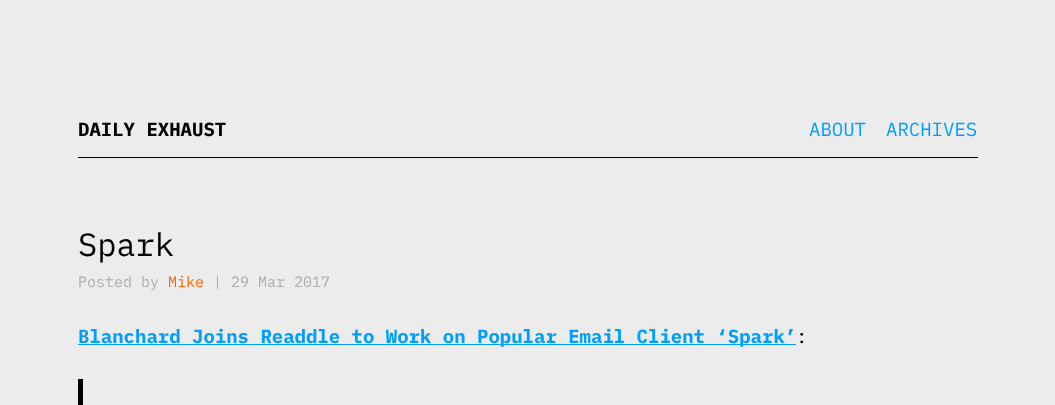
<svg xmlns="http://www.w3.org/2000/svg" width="1055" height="405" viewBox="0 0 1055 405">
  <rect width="100%" height="100%" fill="rgb(236,236,236)"/>
  <rect x="78" y="157" width="900" height="1" fill="rgb(0,0,0)"/>
  <text x="78" y="136" font-family="IBM Plex Mono" font-size="19" font-weight="bold" fill="rgb(0,0,0)">DAILY EXHAUST</text>
  <g font-family="IBM Plex Mono" font-size="19" fill="rgb(0,159,255)">
    <text x="809" y="136">ABOUT</text>
    <text x="886" y="136">ARCHIVES</text>
  </g>
  <text x="78" y="256" font-family="IBM Plex Mono" font-size="32" fill="rgb(0,0,0)">Spark</text>
  <text x="78" y="287" font-family="IBM Plex Mono" font-size="15" fill="rgb(173,173,173)">Posted by</text>
  <text x="168" y="287" font-family="IBM Plex Mono" font-size="15" fill="rgb(255,103,0)">Mike</text>
  <text x="213" y="287" font-family="IBM Plex Mono" font-size="15" fill="rgb(173,173,173)">| 29 Mar 2017</text>
  <rect x="78" y="344" width="718" height="1" fill="rgb(0,159,255)"/>
  <text x="78" y="343" font-family="IBM Plex Mono" font-size="19" font-weight="bold" fill="rgb(0,159,255)">Blanchard Joins Readdle to Work on Popular Email Client ‘Spark’</text>
  <text x="796" y="343" font-family="IBM Plex Mono" font-size="19" fill="rgb(0,0,0)">:</text>
  <rect x="78" y="379" width="5" height="26" fill="rgb(0,0,0)"/>
</svg>
